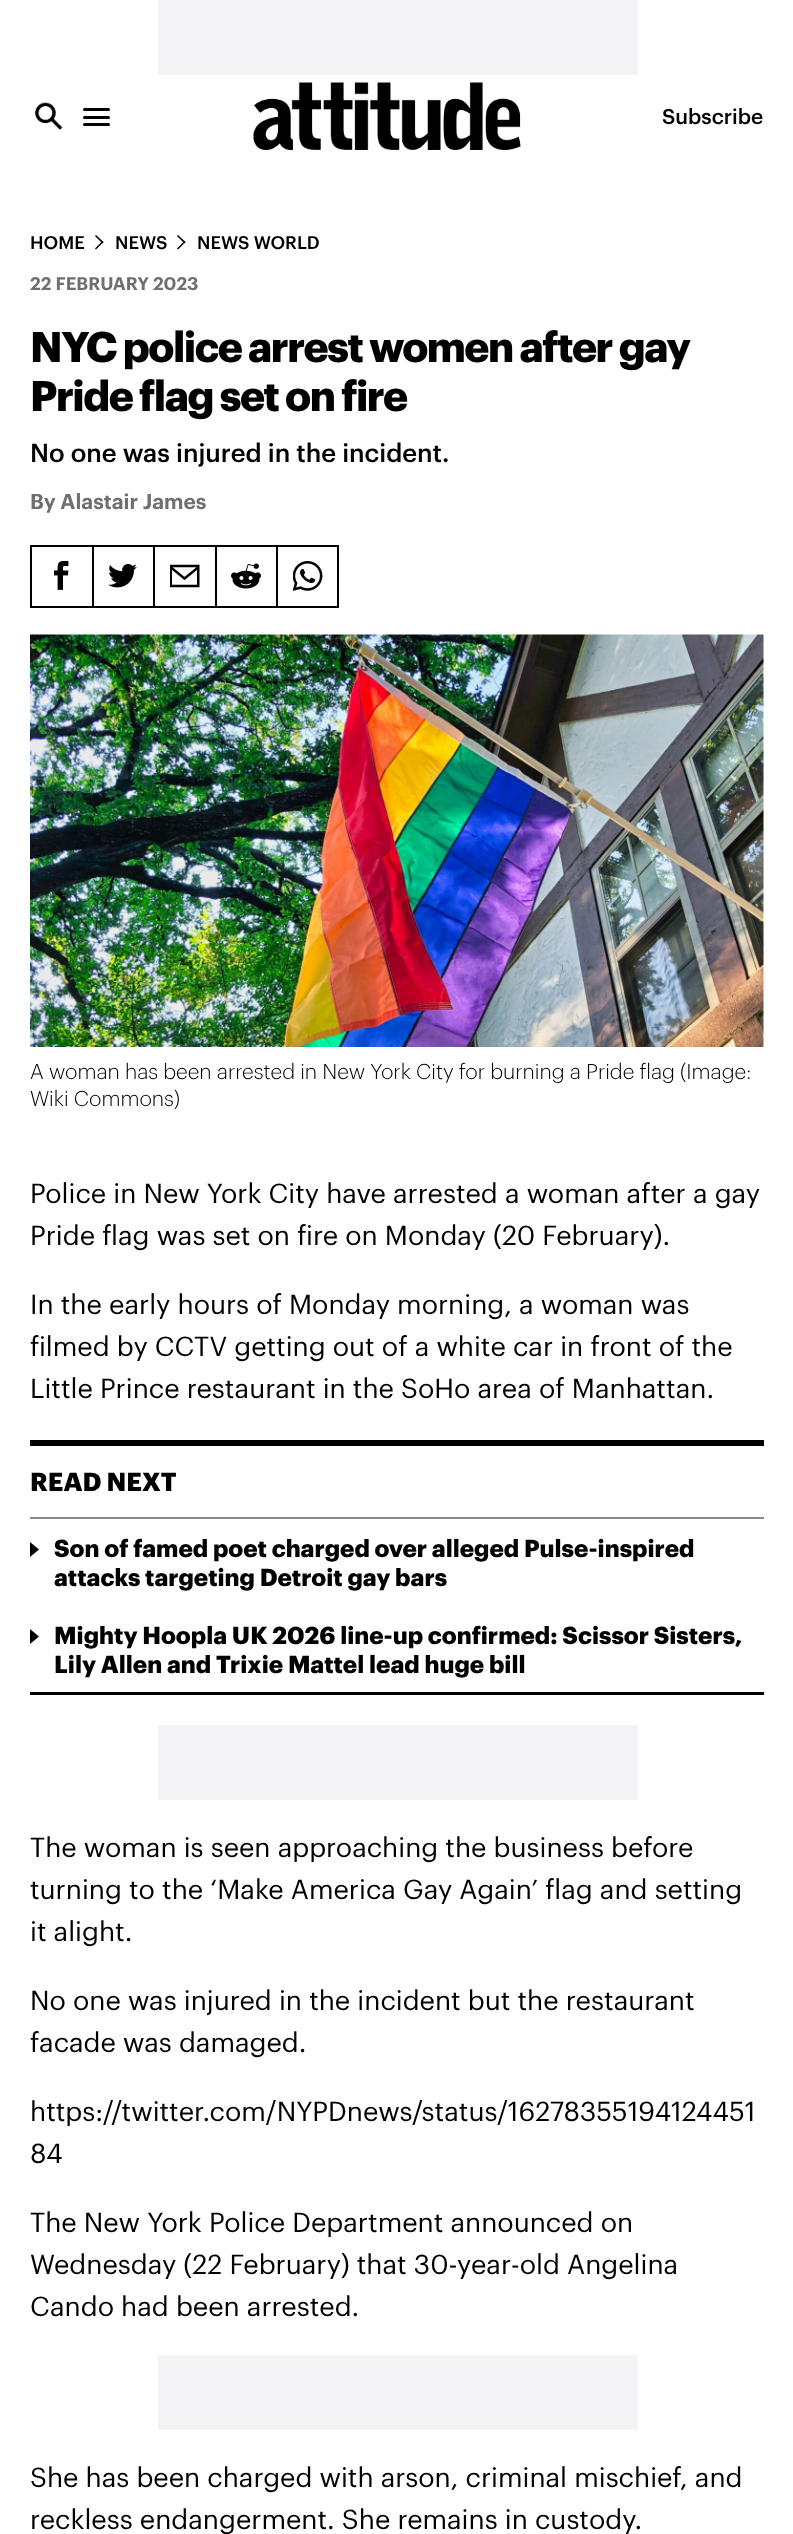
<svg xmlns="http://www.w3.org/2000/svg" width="793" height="2534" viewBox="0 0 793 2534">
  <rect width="100%" height="100%" fill="rgb(255,255,255)"/>
  <rect x="158" y="0" width="480" height="75" fill="rgb(244,244,247)"/>
  <image x="35" y="102" width="28" height="28" href="pic1.png"/>
  <rect x="83" y="108" width="27" height="3" rx="1.5" fill="rgb(0,0,0)"/>
  <rect x="83" y="116" width="27" height="3" rx="1.5" fill="rgb(0,0,0)"/>
  <rect x="83" y="123" width="27" height="3" rx="1.5" fill="rgb(0,0,0)"/>
  <image x="253" y="82" width="268" height="68" href="pic2.png"/>
  <text x="662" y="124" font-family="Graphik" font-size="21" font-weight="500" fill="rgb(0,0,0)">Subscribe</text>
  <text x="30" y="249" font-family="Graphik" font-size="18" font-weight="500" fill="rgb(0,0,0)">HOME</text>
  <path d="M95 236L96 235L103.5 242L102.5 243.5Z" fill="rgb(0,0,0)"/>
  <path d="M95 248.5L102.5 241L103.5 242L96 249.5Z" fill="rgb(0,0,0)"/>
  <text x="115" y="249" font-family="Graphik" font-size="18" font-weight="500" fill="rgb(0,0,0)">NEWS</text>
  <path d="M177 236L178 235L185.5 242L184.5 243.5Z" fill="rgb(0,0,0)"/>
  <path d="M177 248.5L184.5 241L185.5 242L178 249.5Z" fill="rgb(0,0,0)"/>
  <text x="197" y="249" font-family="Graphik" font-size="18" font-weight="500" fill="rgb(0,0,0)">NEWS WORLD</text>
  <text x="30" y="290" font-family="Graphik" font-size="18" font-weight="600" fill="rgb(111,111,111)">22 FEBRUARY 2023</text>
  <g font-family="Graphik" font-size="42" font-weight="bold" letter-spacing="-1.5" fill="rgb(0,0,0)">
    <text>
      <tspan x="30" y="362">NYC police arrest women after gay</tspan>
      <tspan x="30" y="411">Pride flag set on fire</tspan>
    </text>
  </g>
  <text x="30" y="462" font-family="Graphik" font-size="25.5" font-weight="500" fill="rgb(0,0,0)">No one was injured in the incident.</text>
  <text x="30" y="509" font-family="Graphik" font-size="21" font-weight="600" fill="rgb(111,111,111)">By Alastair James</text>
  <rect x="30" y="545" width="246" height="2" fill="rgb(0,0,0)"/>
  <rect x="30" y="606" width="246" height="2" fill="rgb(0,0,0)"/>
  <rect x="30" y="545" width="2" height="63" fill="rgb(0,0,0)"/>
  <image x="54" y="561" width="15" height="29" href="pic3.png"/>
  <rect x="92" y="545" width="2" height="63" fill="rgb(0,0,0)"/>
  <image x="108" y="564" width="29" height="24" href="pic4.png"/>
  <rect x="153" y="545" width="2" height="63" fill="rgb(0,0,0)"/>
  <image x="170" y="564" width="30" height="24" href="pic5.png"/>
  <rect x="215" y="545" width="2" height="63" fill="rgb(0,0,0)"/>
  <image x="231" y="563" width="30" height="26" href="pic6.png"/>
  <rect x="277" y="546" width="61" height="61" fill="none" stroke="rgb(0,0,0)" stroke-width="2"/>
  <image x="293" y="561" width="30" height="30" href="pic7.png"/>
  <image x="30" y="634" width="734" height="413" href="pic8.png"/>
  <g font-family="Graphik" font-size="21" font-weight="300" fill="rgb(0,0,0)">
    <text>
      <tspan x="30" y="1079">A woman has been arrested in New York City for burning a Pride flag (Image:</tspan>
      <tspan x="30" y="1106">Wiki Commons)</tspan>
    </text>
  </g>
  <g font-family="Graphik" font-size="27" fill="rgb(0,0,0)">
    <text>
      <tspan x="30" y="1203">Police in New York City have arrested a woman after a gay</tspan>
      <tspan x="30" y="1245">Pride flag was set on fire on Monday (20 February).</tspan>
    </text>
    <text>
      <tspan x="30" y="1314">In the early hours of Monday morning, a woman was</tspan>
      <tspan x="30" y="1356">filmed by CCTV getting out of a white car in front of the</tspan>
      <tspan x="30" y="1398">Little Prince restaurant in the SoHo area of Manhattan.</tspan>
    </text>
  </g>
  <rect x="30" y="1440" width="734" height="6" fill="rgb(0,0,0)"/>
  <rect x="30" y="1692" width="734" height="3" fill="rgb(0,0,0)"/>
  <rect x="30" y="1517" width="734" height="2" fill="rgb(136,136,136)"/>
  <text x="30" y="1491" font-family="Graphik" font-size="25.5" font-weight="bold" fill="rgb(0,0,0)">READ NEXT</text>
  <path d="M30 1557V1542L39 1549.5Z" fill="rgb(0,0,0)"/>
  <g font-family="Graphik" font-size="24" font-weight="bold" fill="rgb(0,0,0)">
    <text>
      <tspan x="54" y="1557">Son of famed poet charged over alleged Pulse-inspired</tspan>
      <tspan x="54" y="1586">attacks targeting Detroit gay bars</tspan>
    </text>
  </g>
  <path d="M30 1644V1629L39 1636.5Z" fill="rgb(0,0,0)"/>
  <g font-family="Graphik" font-size="24" font-weight="bold" fill="rgb(0,0,0)">
    <text>
      <tspan x="54" y="1644">Mighty Hoopla UK 2026 line-up confirmed: Scissor Sisters,</tspan>
      <tspan x="54" y="1673">Lily Allen and Trixie Mattel lead huge bill</tspan>
    </text>
  </g>
  <rect x="158" y="1725" width="480" height="75" fill="rgb(244,244,247)"/>
  <g font-family="Graphik" font-size="27" fill="rgb(0,0,0)">
    <text>
      <tspan x="30" y="1857">The woman is seen approaching the business before</tspan>
      <tspan x="30" y="1899">turning to the ‘Make America Gay Again’ flag and setting</tspan>
      <tspan x="30" y="1941">it alight.</tspan>
    </text>
    <text>
      <tspan x="30" y="2010">No one was injured in the incident but the restaurant</tspan>
      <tspan x="30" y="2052">facade was damaged.</tspan>
    </text>
    <text>
      <tspan x="30" y="2121">https://twitter.com/NYPDnews/status/16278355194124451</tspan>
      <tspan x="30" y="2163">84</tspan>
    </text>
    <text>
      <tspan x="30" y="2232">The New York Police Department announced on</tspan>
      <tspan x="30" y="2274">Wednesday (22 February) that 30-year-old Angelina</tspan>
      <tspan x="30" y="2316">Cando had been arrested.</tspan>
    </text>
  </g>
  <rect x="158" y="2355" width="480" height="75" fill="rgb(244,244,247)"/>
  <g font-family="Graphik" font-size="27" fill="rgb(0,0,0)">
    <text>
      <tspan x="30" y="2487">She has been charged with arson, criminal mischief, and</tspan>
      <tspan x="30" y="2529">reckless endangerment. She remains in custody.</tspan>
    </text>
  </g>
</svg>
